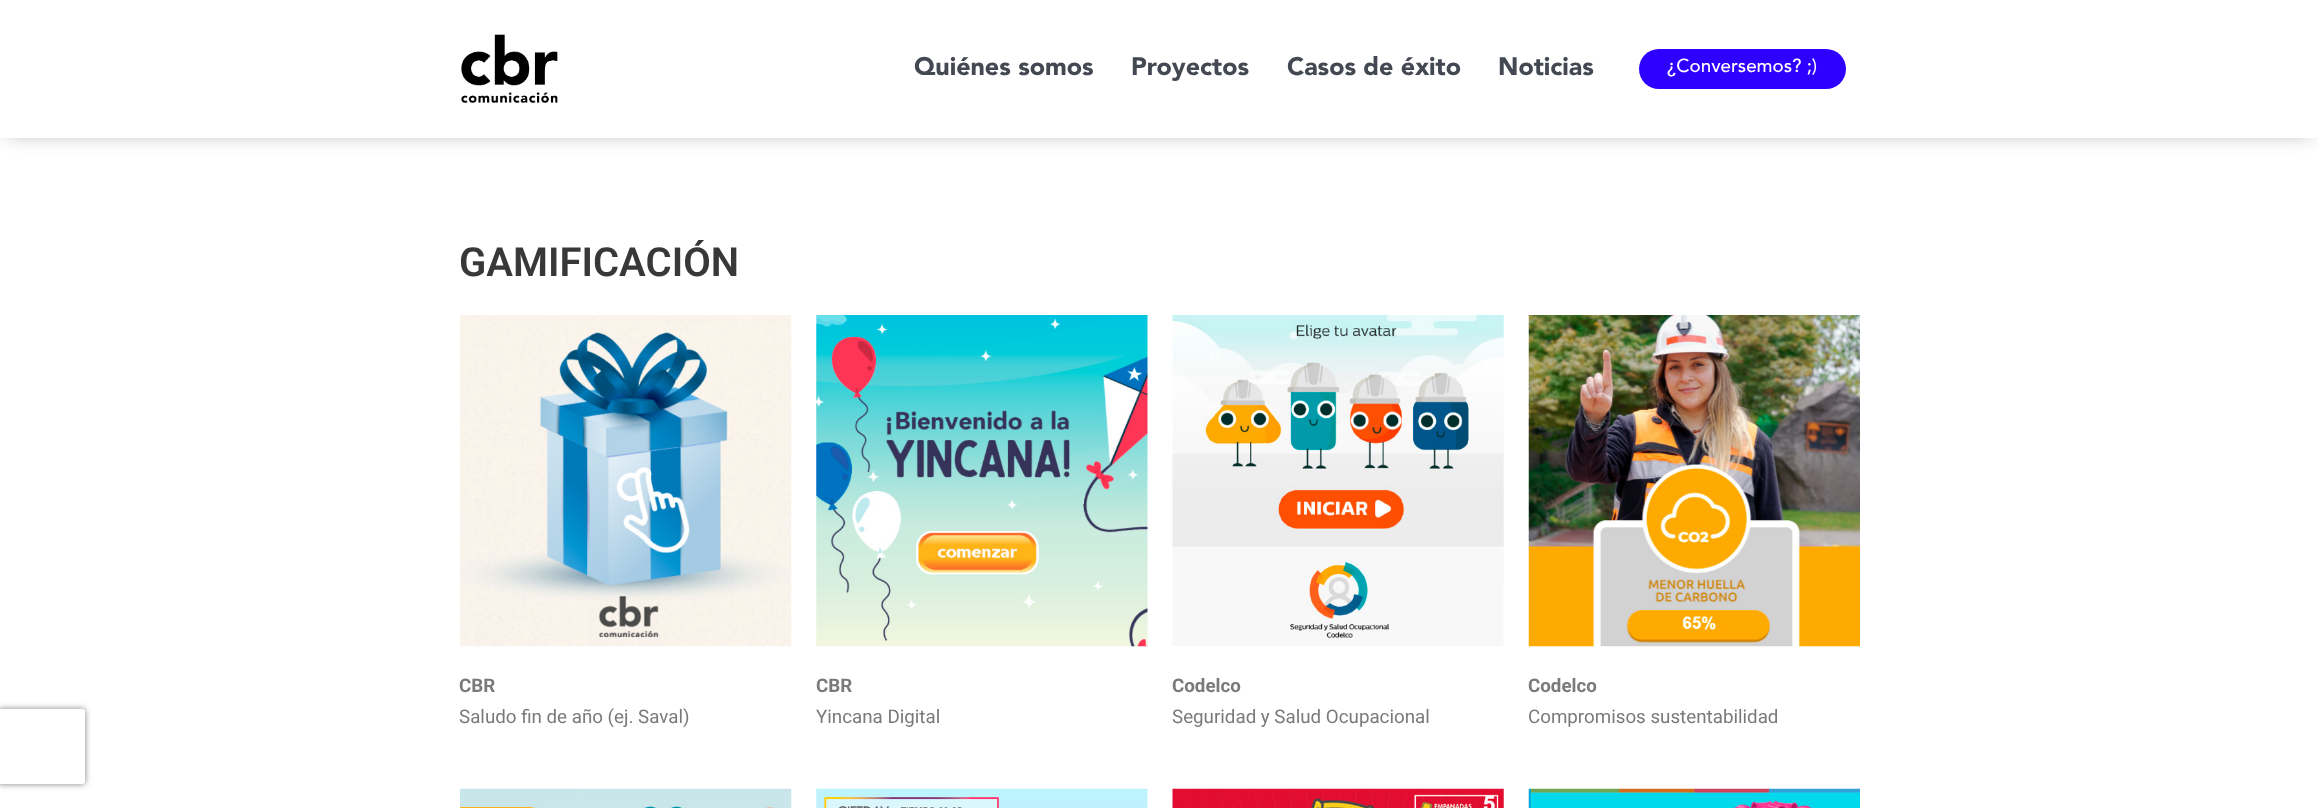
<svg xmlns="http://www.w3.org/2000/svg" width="2318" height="808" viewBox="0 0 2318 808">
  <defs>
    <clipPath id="clip1"><path d="M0 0H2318V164H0ZM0 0H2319V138H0Z" clip-rule="evenodd"/></clipPath>
    <clipPath id="clip2"><path d="M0 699H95V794H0ZM.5 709H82.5C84 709 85 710 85 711.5V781.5C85 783 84 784 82.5 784H.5C-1 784-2 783-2 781.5V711.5C-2 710-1 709 .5 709Z" clip-rule="evenodd"/></clipPath>
  </defs>
  <rect width="100%" height="100%" fill="rgb(255,255,255)"/>
  <g clip-path="url(#clip1)">
    <rect x="8" y="8" width="2303" height="122" fill="rgba(0,0,0,0.5)" filter="blur(11px)"/>
  </g>
  <image x="461" y="34" width="97" height="69" href="pic1.png"/>
  <g font-family="Avenir" font-size="25" font-weight="900" fill="rgb(67,72,82)">
    <text x="914" y="75">Quiénes somos</text>
    <text x="1131" y="75">Proyectos</text>
    <text x="1287" y="75">Casos de éxito</text>
    <text x="1498" y="75">Noticias</text>
  </g>
  <rect x="1639" y="49" width="207" height="40" rx="20" fill="rgb(46,0,255)"/>
  <text x="1667" y="72" font-family="Avenir" font-size="18.75" font-weight="500" fill="rgb(255,255,255)">¿Conversemos? ;)</text>
  <text x="459" y="276" font-family="Roboto" font-size="40" font-weight="600" fill="rgb(56,56,56)">GAMIFICACIÓN</text>
  <image x="460" y="315" width="332" height="332" href="pic2.png"/>
  <text x="459" y="692" font-family="Roboto" font-size="18.75" font-weight="bold" fill="rgb(122,122,122)">CBR</text>
  <text x="459" y="723" font-family="Roboto" font-size="18.75" fill="rgb(122,122,122)">Saludo fin de año (ej. Saval)</text>
  <image x="816" y="315" width="332" height="332" href="pic3.png"/>
  <text x="816" y="692" font-family="Roboto" font-size="18.75" font-weight="bold" fill="rgb(122,122,122)">CBR</text>
  <text x="816" y="723" font-family="Roboto" font-size="18.75" fill="rgb(122,122,122)">Yincana Digital</text>
  <image x="1172" y="315" width="332" height="331" href="pic4.png"/>
  <text x="1172" y="692" font-family="Roboto" font-size="18.75" font-weight="bold" fill="rgb(122,122,122)">Codelco</text>
  <text x="1172" y="723" font-family="Roboto" font-size="18.75" fill="rgb(122,122,122)">Seguridad y Salud Ocupacional</text>
  <image x="1528" y="315" width="332" height="332" href="pic5.png"/>
  <text x="1528" y="692" font-family="Roboto" font-size="18.75" font-weight="bold" fill="rgb(122,122,122)">Codelco</text>
  <text x="1528" y="723" font-family="Roboto" font-size="18.75" fill="rgb(122,122,122)">Compromisos sustentabilidad</text>
  <image x="460" y="788" width="332" height="20" href="pic6.png"/>
  <image x="816" y="788" width="332" height="20" href="pic7.png"/>
  <image x="1172" y="788" width="332" height="20" href="pic8.png"/>
  <image x="1528" y="788" width="332" height="20" href="pic9.png"/>
  <g clip-path="url(#clip2)">
    <rect x="-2" y="709" width="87" height="75" rx="2.5" fill="rgb(128,128,128)" filter="blur(3px)"/>
  </g>
</svg>
